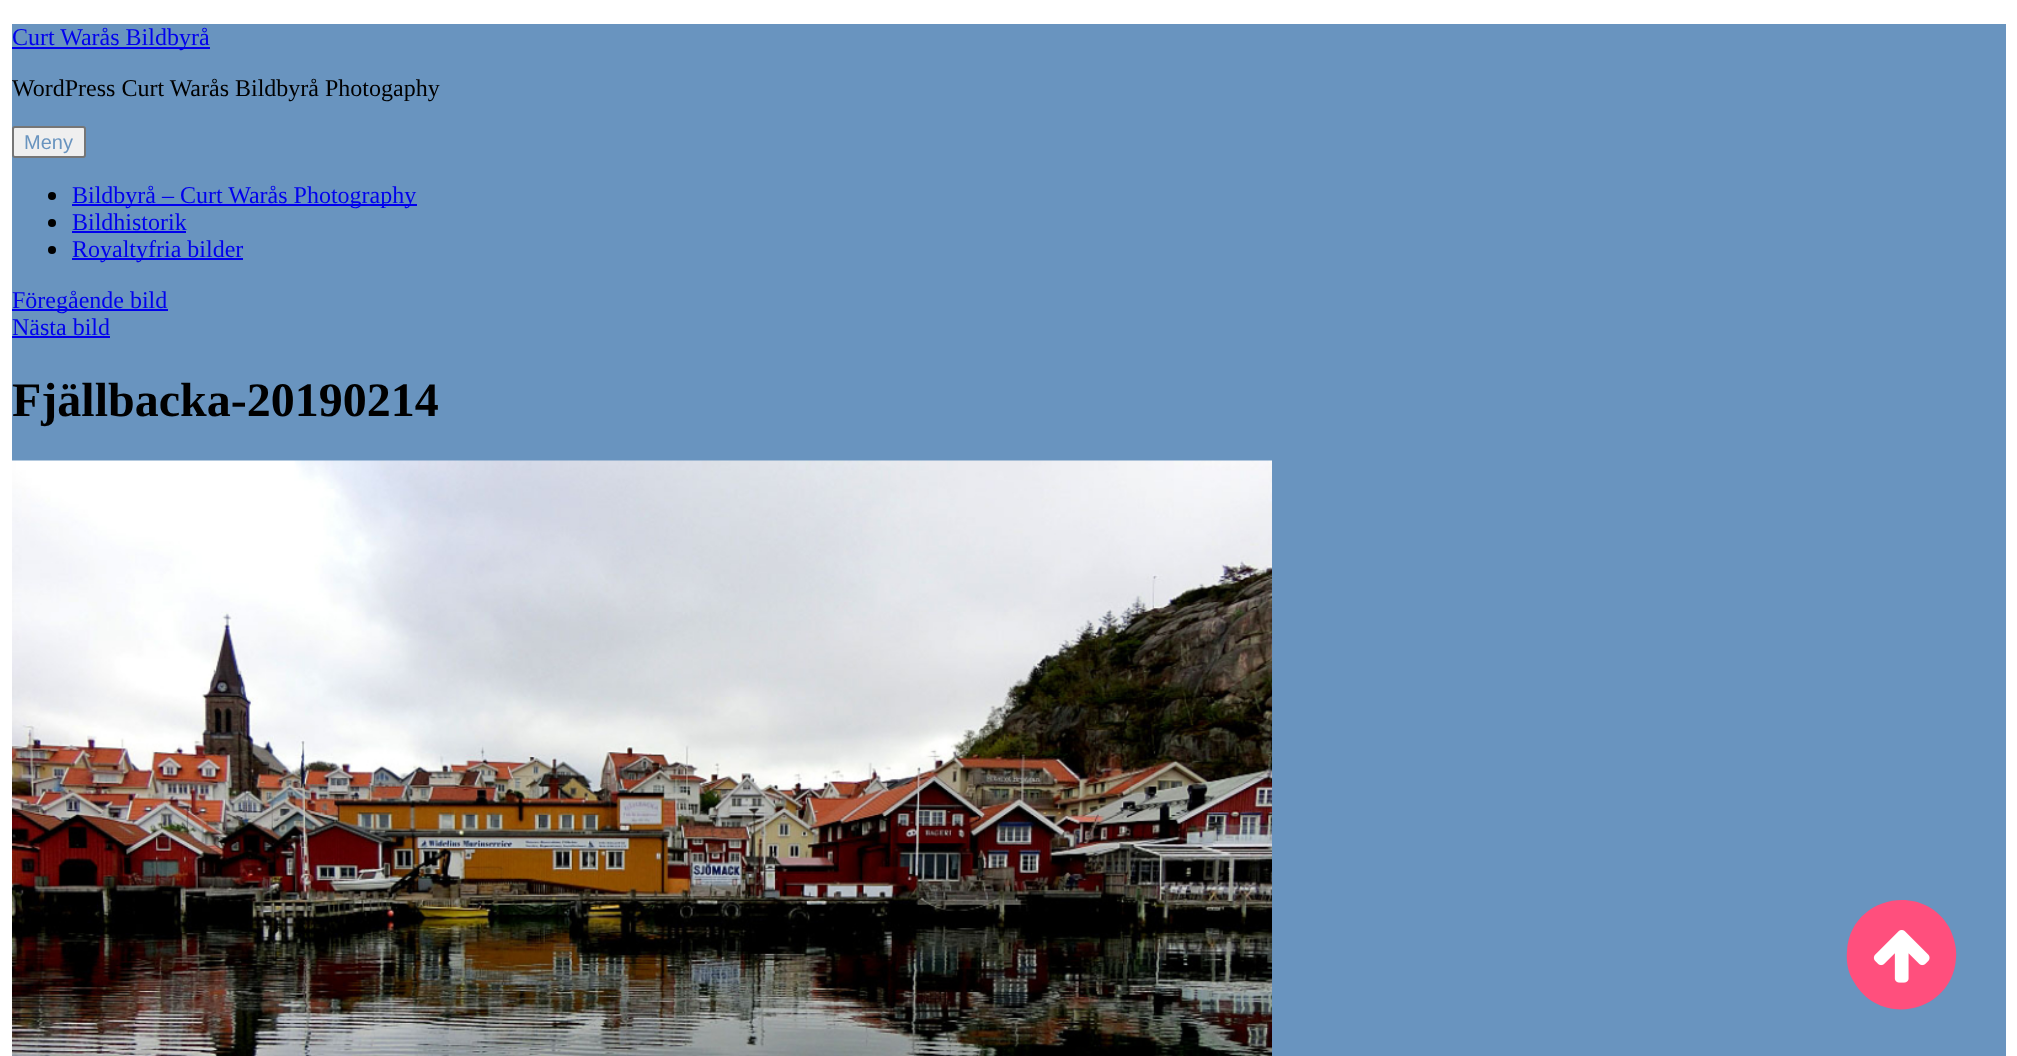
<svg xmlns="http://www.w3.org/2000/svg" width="2017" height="1056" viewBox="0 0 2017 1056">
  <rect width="100%" height="100%" fill="rgb(255,255,255)"/>
  <rect x="12" y="24" width="1994" height="1032" fill="rgb(105,148,191)"/>
  <rect x="12" y="47" width="198" height="2" fill="rgb(0,0,238)"/>
  <text x="12" y="45" font-family="Liberation Serif" font-size="24" fill="rgb(0,0,238)">Curt Warås Bildbyrå</text>
  <text x="12" y="96" font-family="Liberation Serif" font-size="24" fill="rgb(0,0,0)">WordPress Curt Warås Bildbyrå Photogaphy</text>
  <rect x="13" y="127" width="72" height="30" rx="2" fill="rgb(239,239,239)" stroke="rgb(118,118,118)" stroke-width="2"/>
  <text x="24" y="149" font-family="Liberation Sans" font-size="20" fill="rgb(105,148,191)">Meny</text>
  <circle cx="52" cy="196" r="4" fill="rgb(0,0,0)"/>
  <rect x="72" y="204" width="345" height="2" fill="rgb(0,0,238)"/>
  <text x="72" y="203" font-family="Liberation Serif" font-size="24" fill="rgb(0,0,238)">Bildbyrå – Curt Warås Photography</text>
  <circle cx="52" cy="223" r="4" fill="rgb(0,0,0)"/>
  <text x="72" y="230" font-family="Liberation Serif" font-size="24" fill="rgb(0,0,238)">Bildhistorik</text>
  <rect x="72" y="231" width="114" height="2" fill="rgb(0,0,238)"/>
  <circle cx="52" cy="250" r="4" fill="rgb(0,0,0)"/>
  <rect x="72" y="258" width="171" height="2" fill="rgb(0,0,238)"/>
  <text x="72" y="257" font-family="Liberation Serif" font-size="24" fill="rgb(0,0,238)">Royaltyfria bilder</text>
  <rect x="12" y="309" width="156" height="2" fill="rgb(0,0,238)"/>
  <g font-family="Liberation Serif" font-size="24" fill="rgb(0,0,238)">
    <text>
      <tspan x="12" y="308">Föregående bild</tspan>
      <tspan x="12" y="335">Nästa bild</tspan>
    </text>
  </g>
  <rect x="12" y="336" width="98" height="2" fill="rgb(0,0,238)"/>
  <text x="12" y="416" font-family="Liberation Serif" font-size="48" font-weight="bold" fill="rgb(0,0,0)">Fjällbacka-20190214</text>
  <image x="12" y="460" width="1260" height="596" href="pic1.png"/>
  <path d="M1949 927C1954 937 1957 948 1956 958C1953 1012 1881 1029 1854 982C1848 973 1846 962 1847 951C1850 897 1922 881 1949 927Z" fill="rgb(255,79,125)"/>
  <image x="1873" y="930" width="57" height="53" href="pic2.png"/>
</svg>
